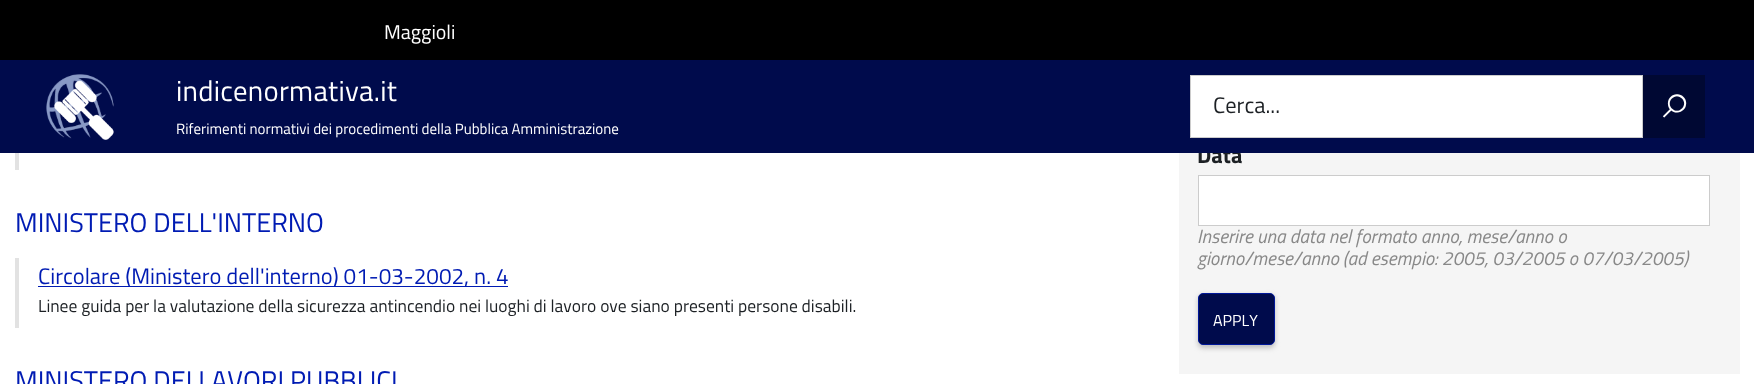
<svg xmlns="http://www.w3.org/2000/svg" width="1754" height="384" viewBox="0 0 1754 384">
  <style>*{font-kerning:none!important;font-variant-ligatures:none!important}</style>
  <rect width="100%" height="100%" fill="rgb(255,255,255)"/>
  <rect x="0" y="0" width="1754" height="60" fill="rgb(0,0,0)"/>
  <text x="384" y="39" font-family="Titillium Web" font-size="20" fill="rgb(255,255,255)">Maggioli</text>
  <rect x="1179" y="153" width="561" height="221" fill="rgb(245,245,245)"/>
  <text x="1197" y="163" font-family="Titillium Web" font-size="22.5" font-weight="bold" fill="rgb(28,32,36)">Data</text>
  <rect x="0" y="60" width="1754" height="93" fill="rgb(0,11,76)"/>
  <image x="46" y="74" width="68" height="66" href="pic1.png"/>
  <text x="176" y="101" font-family="Titillium Web" font-size="28.75" letter-spacing="0.25" fill="rgb(255,255,255)">indicenormativa.it</text>
  <text x="176" y="134" font-family="Titillium Web" font-size="15" fill="rgb(255,255,255)">Riferimenti normativi dei procedimenti della Pubblica Amministrazione</text>
  <rect x="1190.5" y="75.5" width="452" height="62" fill="rgb(255,255,255)" stroke="rgb(204,204,204)"/>
  <rect x="1643" y="75" width="62" height="63" fill="rgb(0,8,51)"/>
  <text x="1663" y="116" font-family="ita" font-size="22.5" font-weight="bold" fill="rgb(255,255,255)">🔍</text>
  <text x="1213" y="113" font-family="Titillium Web" font-size="22.5" fill="rgb(28,32,36)">Cerca...</text>
  <rect x="15" y="153" width="4" height="17" fill="rgb(226,226,226)"/>
  <text x="15" y="232" font-family="Titillium Web" font-size="27" fill="rgb(0,27,179)">MINISTERO DELL'INTERNO</text>
  <rect x="15" y="258" width="4" height="70" fill="rgb(226,226,226)"/>
  <rect x="38" y="286" width="470" height="1" fill="rgb(0,27,179)"/>
  <text x="38" y="284" font-family="Titillium Web" font-size="22.5" fill="rgb(0,27,179)">Circolare (Ministero dell'interno) 01-03-2002, n. 4</text>
  <text x="38" y="312" font-family="Titillium Web" font-size="17.5" fill="rgb(28,32,36)">Linee guida per la valutazione della sicurezza antincendio nei luoghi di lavoro ove siano presenti persone disabili.</text>
  <text x="15" y="390" font-family="Titillium Web" font-size="27" fill="rgb(0,27,179)">MINISTERO DEI LAVORI PUBBLICI</text>
  <rect x="1198.5" y="175.5" width="511" height="50" fill="rgb(255,255,255)" stroke="rgb(204,204,204)"/>
  <g font-family="Titillium Web" font-size="19.1" font-style="italic" fill="rgb(136,136,136)">
    <text>
      <tspan x="1197" y="243">Inserire una data nel formato anno, mese/anno o</tspan>
      <tspan x="1197" y="265">giorno/mese/anno (ad esempio: 2005, 03/2005 o 07/03/2005)</tspan>
    </text>
  </g>
  <rect x="1198" y="295" width="77" height="53" rx="5" fill="rgb(189,189,189)" filter="blur(2.5px)"/>
  <rect x="1198.5" y="293.5" width="76" height="51" rx="4.5" fill="rgb(0,11,76)" stroke="rgb(0,23,153)"/>
  <text x="1213" y="326" font-family="Titillium Web" font-size="16" fill="rgb(255,255,255)">APPLY</text>
</svg>
